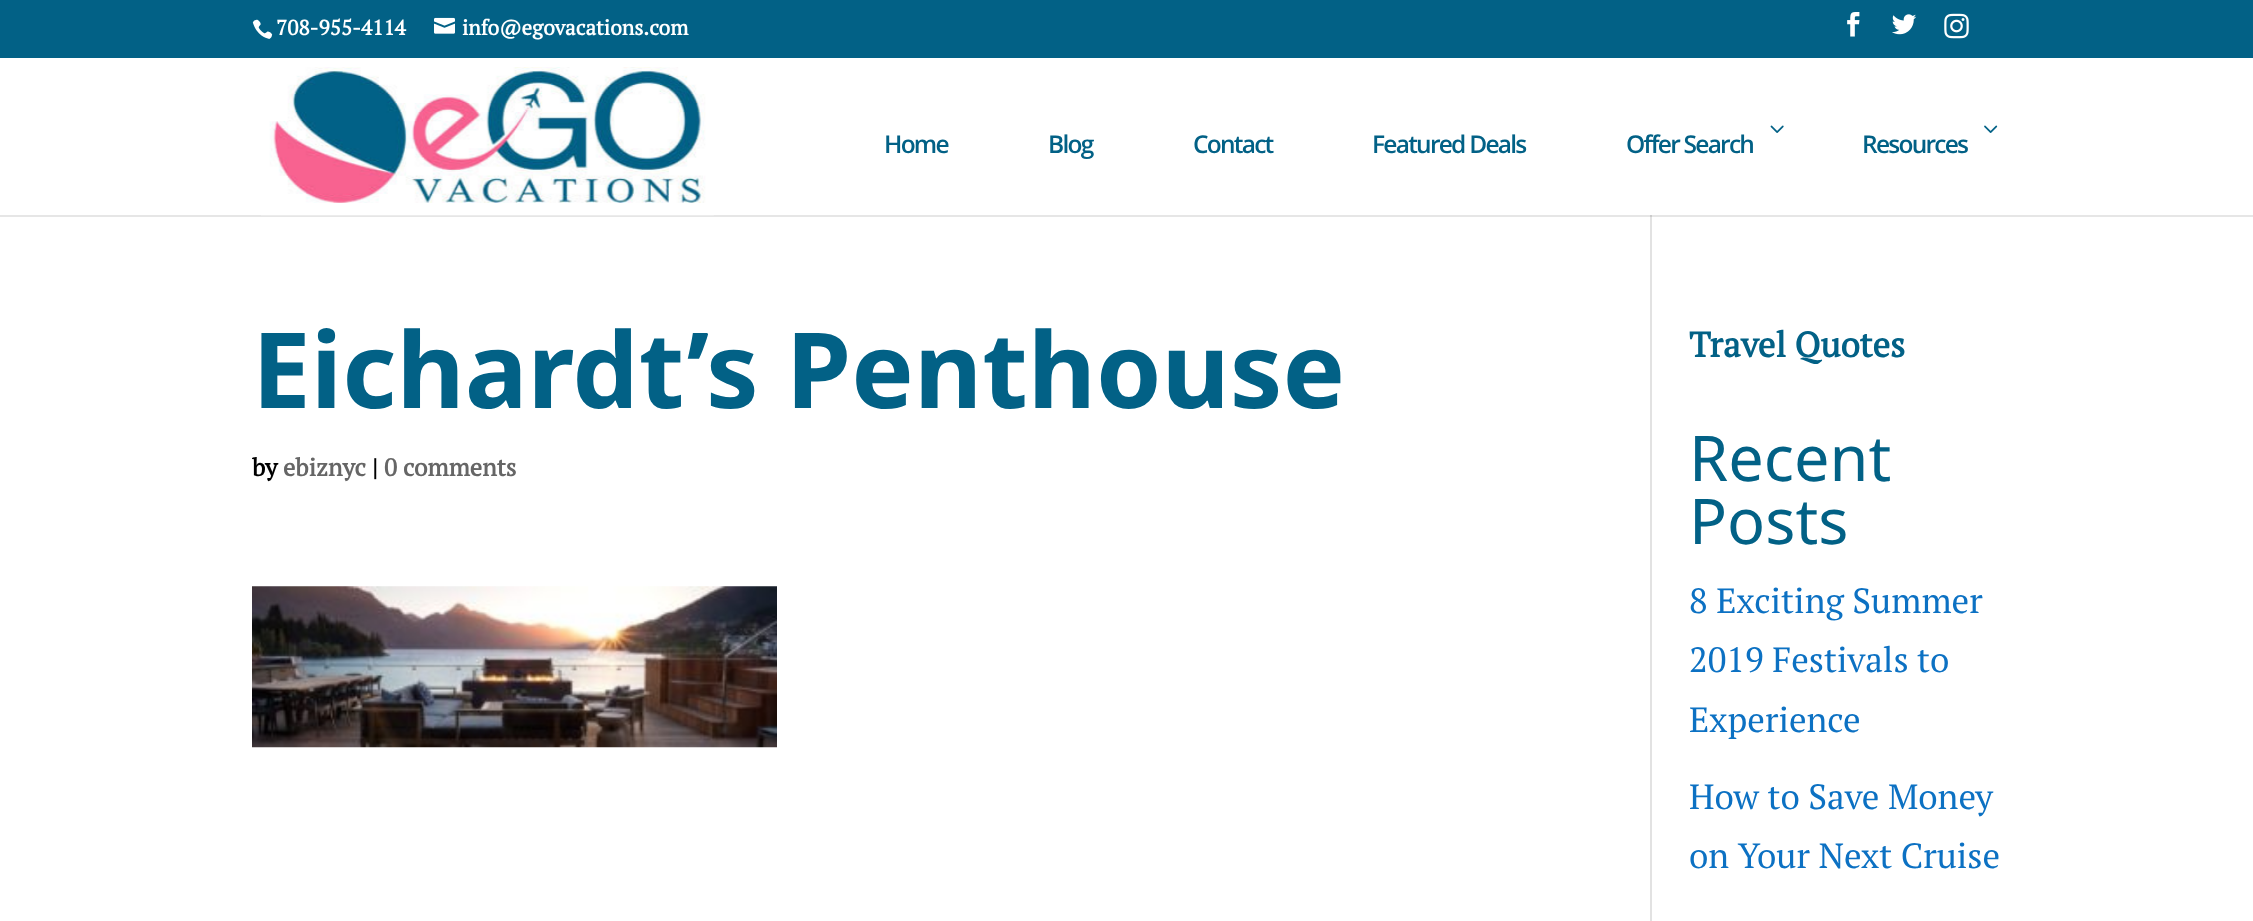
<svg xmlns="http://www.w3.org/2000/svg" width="2253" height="921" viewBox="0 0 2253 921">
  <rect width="100%" height="100%" fill="rgb(255,255,255)"/>
  <rect x="0" y="215" width="2253" height="2" fill="rgb(230,230,230)"/>
  <rect x="0" y="0" width="2253" height="58" fill="rgb(2,97,134)"/>
  <image x="252" y="19" width="21" height="20" href="pic1.png"/>
  <text x="276" y="35" font-family="PT Serif" font-size="21" font-weight="bold" fill="rgb(255,255,255)">708-955-4114</text>
  <image x="434" y="17" width="21" height="17" href="pic2.png"/>
  <text x="462" y="35" font-family="PT Serif" font-size="21" font-weight="bold" fill="rgb(255,255,255)">info@egovacations.com</text>
  <image x="1847" y="12" width="13" height="25" href="pic3.png"/>
  <image x="1892" y="14" width="25" height="21" href="pic4.png"/>
  <image x="1944" y="13" width="25" height="26" href="pic5.png"/>
  <rect x="1650" y="214" width="2" height="707" fill="rgb(226,226,226)"/>
  <rect x="1650" y="214" width="2" height="1" fill="rgb(255,255,255)"/>
  <image x="261" y="67" width="453" height="149" href="pic6.png"/>
  <g font-family="Open Sans" font-size="24.5" font-weight="600" letter-spacing="-1.75" fill="rgb(2,97,134)">
    <text x="884" y="153">Home</text>
    <text x="1048" y="153">Blog</text>
    <text x="1193" y="153">Contact</text>
    <text x="1372" y="153">Featured Deals</text>
  </g>
  <image x="1770" y="125" width="14" height="8" href="pic7.png"/>
  <text x="1626" y="153" font-family="Open Sans" font-size="24.5" font-weight="600" letter-spacing="-1.75" fill="rgb(2,97,134)">Offer Search</text>
  <image x="1984" y="125" width="14" height="8" href="pic8.png"/>
  <text x="1862" y="153" font-family="Open Sans" font-size="24.5" font-weight="600" letter-spacing="-1.75" fill="rgb(2,97,134)">Resources</text>
  <rect x="1650" y="215" width="2" height="2" fill="rgb(203,203,203)"/>
  <text x="252" y="408" font-family="Noto Sans" font-size="105" font-weight="bold" fill="rgb(2,97,134)">Eichardt’s Penthouse</text>
  <text x="252" y="476" font-family="PT Serif" font-size="24.5" font-weight="bold" fill="rgb(0,0,0)">by</text>
  <text x="283" y="476" font-family="PT Serif" font-size="24.5" font-weight="bold" fill="rgb(102,102,102)">ebiznyc</text>
  <text x="372" y="476" font-family="PT Serif" font-size="24.5" font-weight="bold" fill="rgb(0,0,0)">|</text>
  <text x="384" y="476" font-family="PT Serif" font-size="24.5" font-weight="bold" fill="rgb(102,102,102)">0 comments</text>
  <image x="252" y="586" width="525" height="162" href="pic9.png"/>
  <text x="1689" y="357" font-family="PT Serif" font-size="35" font-weight="bold" fill="rgb(2,97,134)">Travel Quotes</text>
  <g font-family="Noto Sans" font-size="63" fill="rgb(2,97,134)">
    <text>
      <tspan x="1689" y="481">Recent</tspan>
      <tspan x="1689" y="544">Posts</tspan>
    </text>
  </g>
  <g font-family="PT Serif" font-size="35" fill="rgb(12,113,195)">
    <text>
      <tspan x="1689" y="613">8 Exciting Summer</tspan>
      <tspan x="1689" y="672">2019 Festivals to</tspan>
      <tspan x="1689" y="732">Experience</tspan>
    </text>
    <text>
      <tspan x="1689" y="809">How to Save Money</tspan>
      <tspan x="1689" y="868">on Your Next Cruise</tspan>
    </text>
  </g>
</svg>
